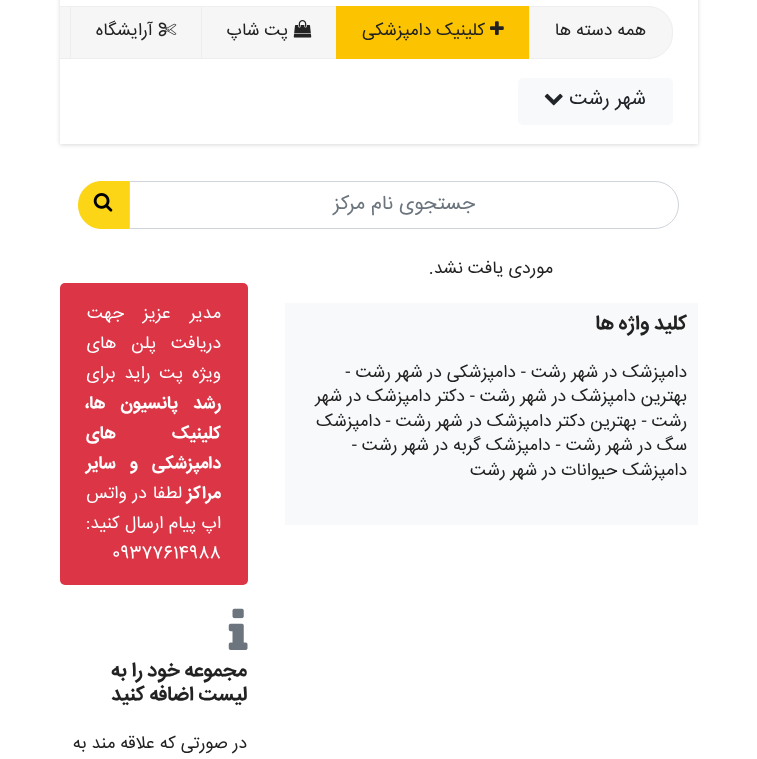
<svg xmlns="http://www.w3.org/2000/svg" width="757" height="759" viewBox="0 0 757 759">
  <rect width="100%" height="100%" fill="rgb(255,255,255)"/>
  <rect x="60" y="-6" width="638" height="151" fill="rgba(0,0,0,0.15)" filter="blur(2px)"/>
  <rect x="60" y="0" width="638" height="144" fill="rgb(255,255,255)"/>
  <path d="M529.5 6.5H648C661.5 6.5 672.5 17.5 672.5 31V34C672.5 47.5 661.5 58.5 648 58.5H529.5Z" fill="rgb(246,246,246)" stroke="rgb(238,238,238)"/>
  <text x="646" y="35" font-family="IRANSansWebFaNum" font-size="17.5" direction="rtl" fill="rgb(34,34,34)">همه دسته ها</text>
  <rect x="336" y="6" width="193" height="53" fill="rgb(252,196,0)"/>
  <image x="490" y="21" width="14" height="14" href="pic1.png"/>
  <text x="485" y="35" font-family="IRANSansWebFaNum" font-size="17.5" direction="rtl" fill="rgb(34,34,34)">کلینیک دامپزشکی</text>
  <rect x="202" y="7" width="134" height="51" fill="rgb(246,246,246)"/>
  <rect x="60" y="6" width="276" height="1" fill="rgb(238,238,238)"/>
  <rect x="60" y="58" width="276" height="1" fill="rgb(238,238,238)"/>
  <rect x="201" y="6" width="1" height="53" fill="rgb(238,238,238)"/>
  <image x="293" y="20" width="19" height="18" href="pic2.png"/>
  <text x="288" y="35" font-family="IRANSansWebFaNum" font-size="17.5" direction="rtl" fill="rgb(34,34,34)">پت شاپ</text>
  <rect x="71" y="7" width="130" height="51" fill="rgb(246,246,246)"/>
  <rect x="70" y="6" width="1" height="53" fill="rgb(238,238,238)"/>
  <image x="158" y="22" width="19" height="15" href="pic3.png"/>
  <text x="153" y="35" font-family="IRANSansWebFaNum" font-size="17.5" direction="rtl" fill="rgb(34,34,34)">آرایشگاه</text>
  <rect x="60" y="7" width="10" height="51" fill="rgb(246,246,246)"/>
  <rect x="518" y="78" width="155" height="47" rx="5" fill="rgb(248,249,250)"/>
  <text x="646" y="104" font-family="IRANSansWebFaNum" font-size="20" direction="rtl" fill="rgb(33,37,41)">شهر رشت</text>
  <image x="544" y="93" width="19" height="13" href="pic4.png"/>
  <path d="M129.5 181.5H655C668 181.5 678.5 192 678.5 205C678.5 218 668 228.5 655 228.5H129.5Z" fill="none" stroke="rgb(206,212,218)"/>
  <text x="475" y="209" font-family="IRANSansWebFaNum" font-size="20" direction="rtl" fill="rgb(108,117,125)">جستجوی نام مرکز</text>
  <path d="M102 181H129V229H102C88.5 229 78 218.5 78 205C78 191.5 88.5 181 102 181Z" fill="rgb(252,213,22)"/>
  <image x="93" y="193" width="20" height="19" href="pic5.png"/>
  <text x="553" y="273" font-family="IRANSansWebFaNum" font-size="17.5" direction="rtl" fill="rgb(34,34,34)">موردی یافت نشد.</text>
  <rect x="285" y="303" width="413" height="222" fill="rgb(248,249,250)"/>
  <text x="687" y="329" font-family="IRANSansWebFaNum" font-size="20" font-weight="bold" direction="rtl" fill="rgb(34,34,34)">کلید واژه ها</text>
  <g font-family="IRANSansWebFaNum" font-size="17.5" direction="rtl" fill="rgb(34,34,34)">
    <text>
      <tspan x="687" y="377">دامپزشک در شهر رشت - دامپزشکی در شهر رشت -</tspan>
      <tspan x="687" y="401">بهترین دامپزشک در شهر رشت - دکتر دامپزشک در شهر</tspan>
      <tspan x="687" y="426">رشت - بهترین دکتر دامپزشک در شهر رشت -</tspan>
    </text>
    <text x="381" y="426">دامپزشک</text>
    <text x="687" y="450">سگ</text>
    <text x="652" y="450">در شهر رشت - دامپزشک گربه در شهر رشت -</text>
    <text x="687" y="475">دامپزشک حیوانات در شهر رشت</text>
  </g>
  <rect x="60" y="283" width="188" height="302" rx="5" fill="rgb(220,53,69)"/>
  <g font-family="IRANSansWebFaNum" font-size="17.5" direction="rtl" fill="rgb(255,255,255)">
    <text>
      <tspan x="221" y="318" word-spacing="14">مدیر عزیز جهت</tspan>
      <tspan x="221" y="348" word-spacing="10">دریافت پلن های</tspan>
      <tspan x="221" y="378" word-spacing="4">ویژه پت راید برای</tspan>
    </text>
  </g>
  <g font-family="IRANSansWebFaNum" font-size="17.5" font-weight="bold" direction="rtl" fill="rgb(255,255,255)">
    <text>
      <tspan x="221" y="408" word-spacing="11">رشد پانسیون ها،</tspan>
      <tspan x="221" y="438" word-spacing="52">کلینیک های</tspan>
      <tspan x="221" y="468" word-spacing="10">دامپزشکی و سایر</tspan>
      <tspan x="221" y="498">مراکز</tspan>
    </text>
  </g>
  <g font-family="IRANSansWebFaNum" font-size="17.5" direction="rtl" fill="rgb(255,255,255)">
    <text x="182" y="498" word-spacing="1">لطفا در واتس</text>
    <text x="221" y="528" word-spacing="0.5">اپ پیام ارسال کنید:</text>
  </g>
  <text x="112" y="558" font-family="IRANSansWebFaNum" font-size="17.5" fill="rgb(255,255,255)">09377614988</text>
  <image x="228" y="608" width="20" height="42" href="pic6.png"/>
  <g font-family="IRANSansWebFaNum" font-size="20" font-weight="bold" direction="rtl" fill="rgb(34,34,34)">
    <text>
      <tspan x="247" y="676">مجموعه خود را به</tspan>
      <tspan x="247" y="700">لیست اضافه کنید</tspan>
    </text>
  </g>
  <text x="247" y="748" font-family="IRANSansWebFaNum" font-size="17.5" direction="rtl" fill="rgb(34,34,34)">در صورتی که علاقه مند به</text>
</svg>
